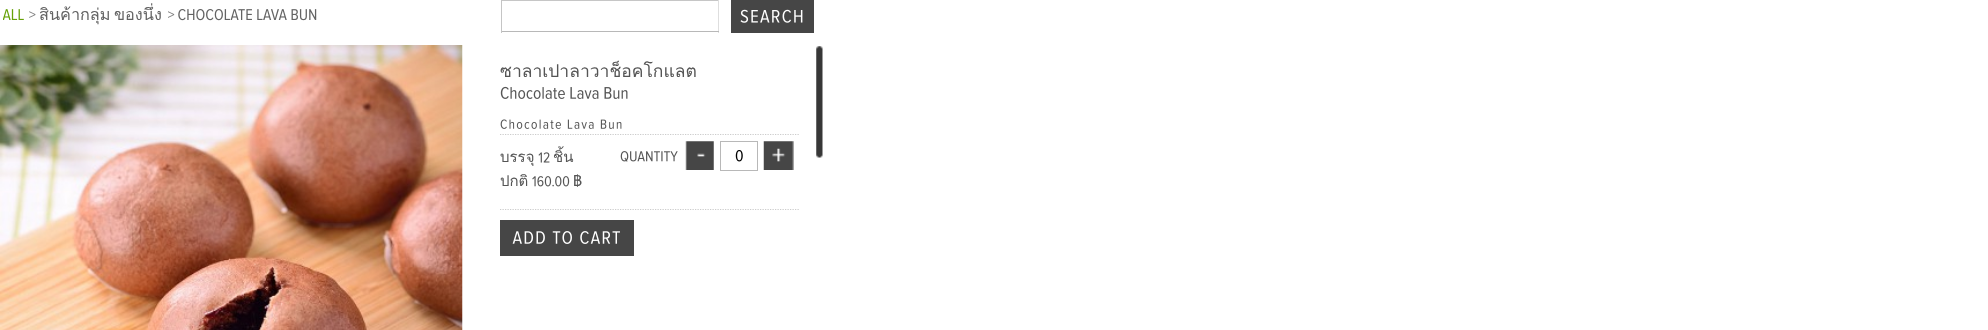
<svg xmlns="http://www.w3.org/2000/svg" width="1988" height="330" viewBox="0 0 1988 330">
  <defs>
    <clipPath id="clip1"><rect x="39" y="0" width="126" height="31"/></clipPath>
  </defs>
  <rect width="100%" height="100%" fill="rgb(255,255,255)"/>
  <image x="3" y="9" width="21" height="11" href="pic1.png"/>
  <image x="29" y="11" width="7" height="7" href="pic2.png"/>
  <g clip-path="url(#clip1)">
    <text x="39" y="20" word-spacing="-2" font-family="Loma" font-size="16.25" fill="rgb(99,99,99)">สินค้ากลุ่ม ของนึ่ง</text>
  </g>
  <image x="168" y="11" width="7" height="7" href="pic3.png"/>
  <image x="178" y="9" width="139" height="12" href="pic4.png"/>
  <rect x="501" y="0" width="218" height="1" fill="rgb(198,198,198)"/>
  <rect x="718" y="0" width="1" height="33" fill="rgb(222,222,222)"/>
  <rect x="501" y="31" width="218" height="1" fill="rgb(184,184,184)"/>
  <rect x="501" y="0" width="1" height="33" fill="rgb(197,197,197)"/>
  <rect x="731" y="0" width="83" height="33" fill="rgb(70,70,70)"/>
  <image x="740" y="9" width="63" height="14" href="pic5.png"/>
  <image x="0" y="45" width="463" height="285" href="pic6.png"/>
  <text x="500" y="77" font-family="Loma" font-size="17.5" fill="rgb(85,85,85)">ซาลาเปาลาวาช็อคโกแลต</text>
  <image x="500" y="86" width="128" height="13" href="pic7.png"/>
  <image x="500" y="119" width="122" height="10" href="pic8.png"/>
  <path d="M500 134.5H800" fill="none" stroke="rgb(204,204,204)" stroke-width="1.2" stroke-dasharray="1.25 1.25"/>
  <text x="500" y="162" font-family="Loma" font-size="15" fill="rgb(85,85,85)">บรรจุ</text>
  <image x="538" y="152" width="12" height="11" href="pic9.png"/>
  <g font-family="Loma" font-size="15" fill="rgb(85,85,85)">
    <text x="553" y="162">ชิ้น</text>
    <text x="500" y="186">ปกติ</text>
  </g>
  <image x="532" y="176" width="38" height="11" href="pic10.png"/>
  <text x="573" y="186" font-family="Loma" font-size="15" fill="rgb(85,85,85)">฿</text>
  <image x="620" y="151" width="58" height="11" href="pic11.png"/>
  <image x="685" y="141" width="29" height="29" href="pic12.png"/>
  <rect x="720.5" y="141.5" width="37" height="29" fill="none" stroke="rgb(184,184,184)"/>
  <image x="735" y="150" width="8" height="12" href="pic13.png"/>
  <image x="763" y="141" width="31" height="29" href="pic14.png"/>
  <path d="M500 209.5H800" fill="none" stroke="rgb(204,204,204)" stroke-width="1.2" stroke-dasharray="1.25 1.25"/>
  <rect x="500" y="220" width="134" height="36" fill="rgb(70,70,70)"/>
  <image x="512" y="231" width="108" height="13" href="pic15.png"/>
  <image x="816" y="46" width="7" height="112" href="pic16.png"/>
</svg>
